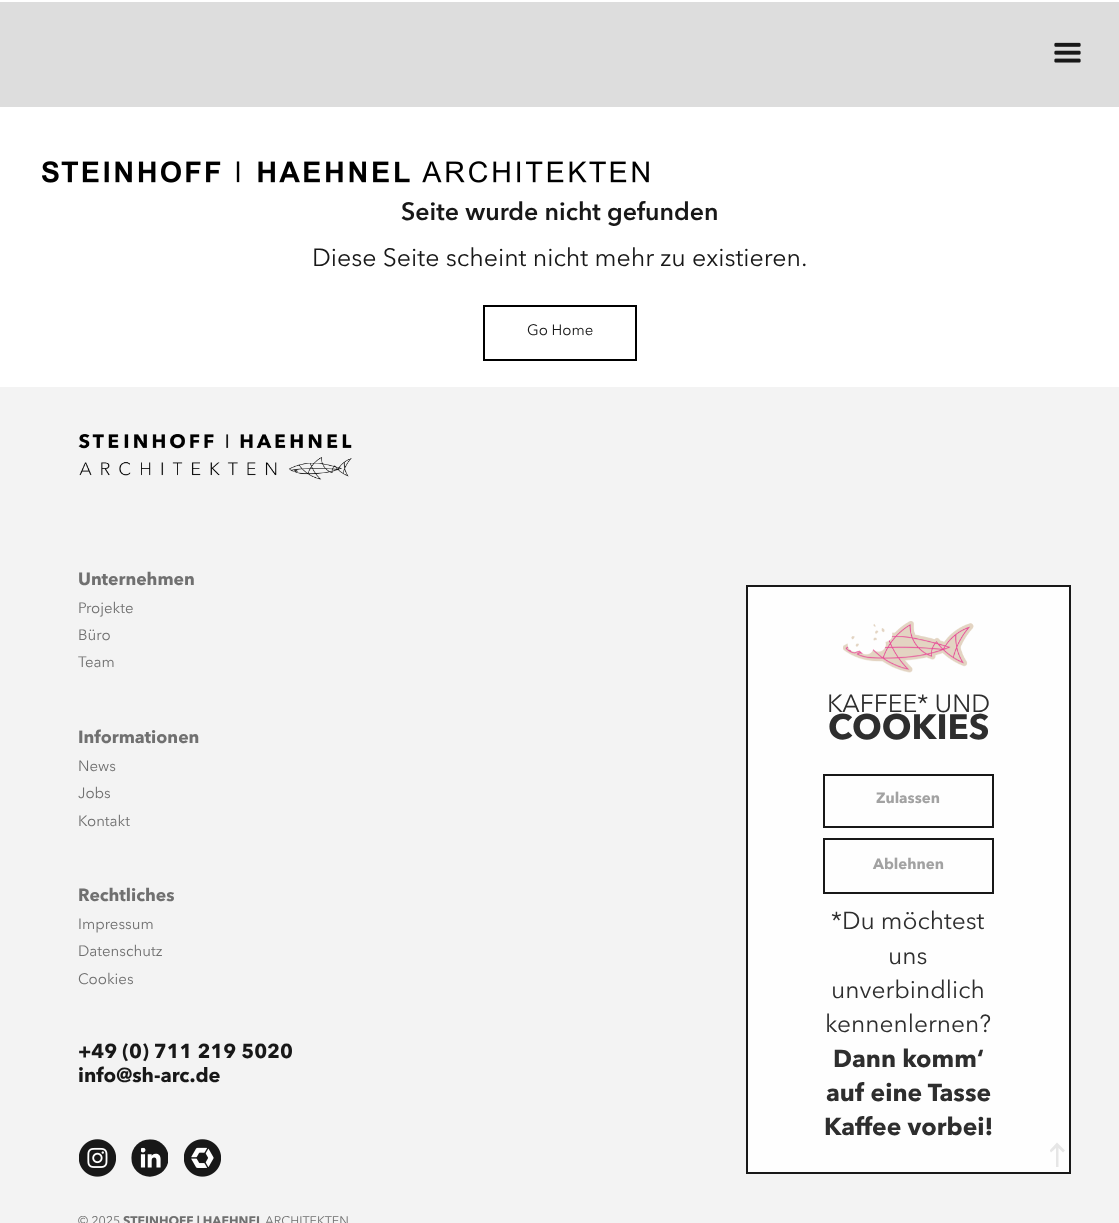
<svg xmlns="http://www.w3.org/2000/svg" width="1119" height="1223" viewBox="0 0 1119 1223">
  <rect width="100%" height="100%" fill="rgb(255,255,255)"/>
  <rect x="0" y="2" width="1119" height="105" fill="rgb(221,221,221)"/>
  <image x="1054" y="42" width="27" height="21" href="pic1.png"/>
  <image x="42" y="161" width="607" height="22" href="pic2.png"/>
  <text x="401" y="220" font-family="Avenir Next" font-size="24.9" font-weight="bold" fill="rgb(24,24,24)">Seite wurde nicht gefunden</text>
  <text x="312" y="266" font-family="Avenir Next" font-size="24.9" fill="rgb(24,24,24)">Diese Seite scheint nicht mehr zu existieren.</text>
  <rect x="484" y="306" width="152" height="54" fill="none" stroke="rgb(0,0,0)" stroke-width="2"/>
  <text x="527" y="335" font-family="Avenir Next" font-size="15" fill="rgb(24,24,24)">Go Home</text>
  <rect x="0" y="387" width="1119" height="836" fill="rgb(243,243,243)"/>
  <rect x="748" y="587" width="321" height="585" fill="rgb(254,254,254)"/>
  <image x="78" y="434" width="274" height="46" href="pic3.png"/>
  <text x="78" y="585" font-family="'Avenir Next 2'" font-size="17.5" font-weight="bold" fill="rgb(112,112,112)">Unternehmen</text>
  <g font-family="Avenir Next" font-size="15" fill="rgb(112,112,112)">
    <text>
      <tspan x="78" y="613">Projekte</tspan>
      <tspan x="78" y="640">Büro</tspan>
      <tspan x="78" y="667">Team</tspan>
    </text>
  </g>
  <text x="78" y="743" font-family="'Avenir Next 2'" font-size="17.5" font-weight="bold" fill="rgb(112,112,112)">Informationen</text>
  <g font-family="Avenir Next" font-size="15" fill="rgb(112,112,112)">
    <text>
      <tspan x="78" y="771">News</tspan>
      <tspan x="78" y="798">Jobs</tspan>
      <tspan x="78" y="826">Kontakt</tspan>
    </text>
  </g>
  <text x="78" y="901" font-family="'Avenir Next 2'" font-size="17.5" font-weight="bold" fill="rgb(112,112,112)">Rechtliches</text>
  <g font-family="Avenir Next" font-size="15" fill="rgb(112,112,112)">
    <text>
      <tspan x="78" y="929">Impressum</tspan>
      <tspan x="78" y="956">Datenschutz</tspan>
      <tspan x="78" y="984">Cookies</tspan>
    </text>
  </g>
  <g font-family="'Avenir Next 2'" font-size="20" font-weight="bold" fill="rgb(24,24,24)">
    <text>
      <tspan x="78" y="1058">+49 (0) 711 219 5020</tspan>
      <tspan x="78" y="1082">info@sh-arc.de</tspan>
    </text>
  </g>
  <image x="79" y="1139" width="37" height="38" href="pic4.png"/>
  <image x="131" y="1139" width="37" height="38" href="pic5.png"/>
  <image x="184" y="1139" width="37" height="38" href="pic6.png"/>
  <path d="M1058.5 1167V1148L1063 1152.5L1065 1150.5L1057 1142.5L1050 1150V1151L1051 1152.5L1056 1148V1167Z" fill="rgb(230,230,230)"/>
  <text x="78" y="1225" font-family="Avenir Next" font-size="12.5" fill="rgb(112,112,112)">© 2025</text>
  <text x="123" y="1225" font-family="'Avenir Next 2'" font-size="12.5" font-weight="bold" fill="rgb(112,112,112)">STEINHOFF | HAEHNEL</text>
  <text x="265" y="1225" font-family="Avenir Next" font-size="12.5" fill="rgb(112,112,112)">ARCHITEKTEN</text>
  <rect x="747" y="586" width="323" height="587" fill="none" stroke="rgb(24,24,24)" stroke-width="2"/>
  <image x="843" y="621" width="131" height="52" href="pic7.png"/>
  <text x="827" y="712" font-family="Avenir Next" font-size="24.9" fill="rgb(46,46,46)">KAFFEE* UND</text>
  <text x="828" y="739" font-family="'Avenir Next 2'" font-size="35" font-weight="bold" fill="rgb(46,46,46)">COOKIES</text>
  <rect x="824" y="775" width="169" height="52" fill="none" stroke="rgb(24,24,24)" stroke-width="2"/>
  <text x="876" y="803" font-family="'Avenir Next 2'" font-size="15" font-weight="bold" fill="rgb(162,162,162)">Zulassen</text>
  <rect x="824" y="839" width="169" height="54" fill="none" stroke="rgb(24,24,24)" stroke-width="2"/>
  <text x="873" y="869" font-family="'Avenir Next 2'" font-size="15" font-weight="bold" fill="rgb(162,162,162)">Ablehnen</text>
  <g font-family="Avenir Next" font-size="24.5" fill="rgb(46,46,46)">
    <text x="831" y="929">*Du möchtest</text>
    <text x="888" y="964">uns</text>
    <text x="831" y="998">unverbindlich</text>
    <text x="825" y="1032">kennenlernen?</text>
  </g>
  <g font-family="'Avenir Next 2'" font-size="24.5" font-weight="bold" fill="rgb(46,46,46)">
    <text x="833" y="1067">Dann komm‘</text>
    <text x="826" y="1101">auf eine Tasse</text>
    <text x="824" y="1135">Kaffee vorbei!</text>
  </g>
</svg>
